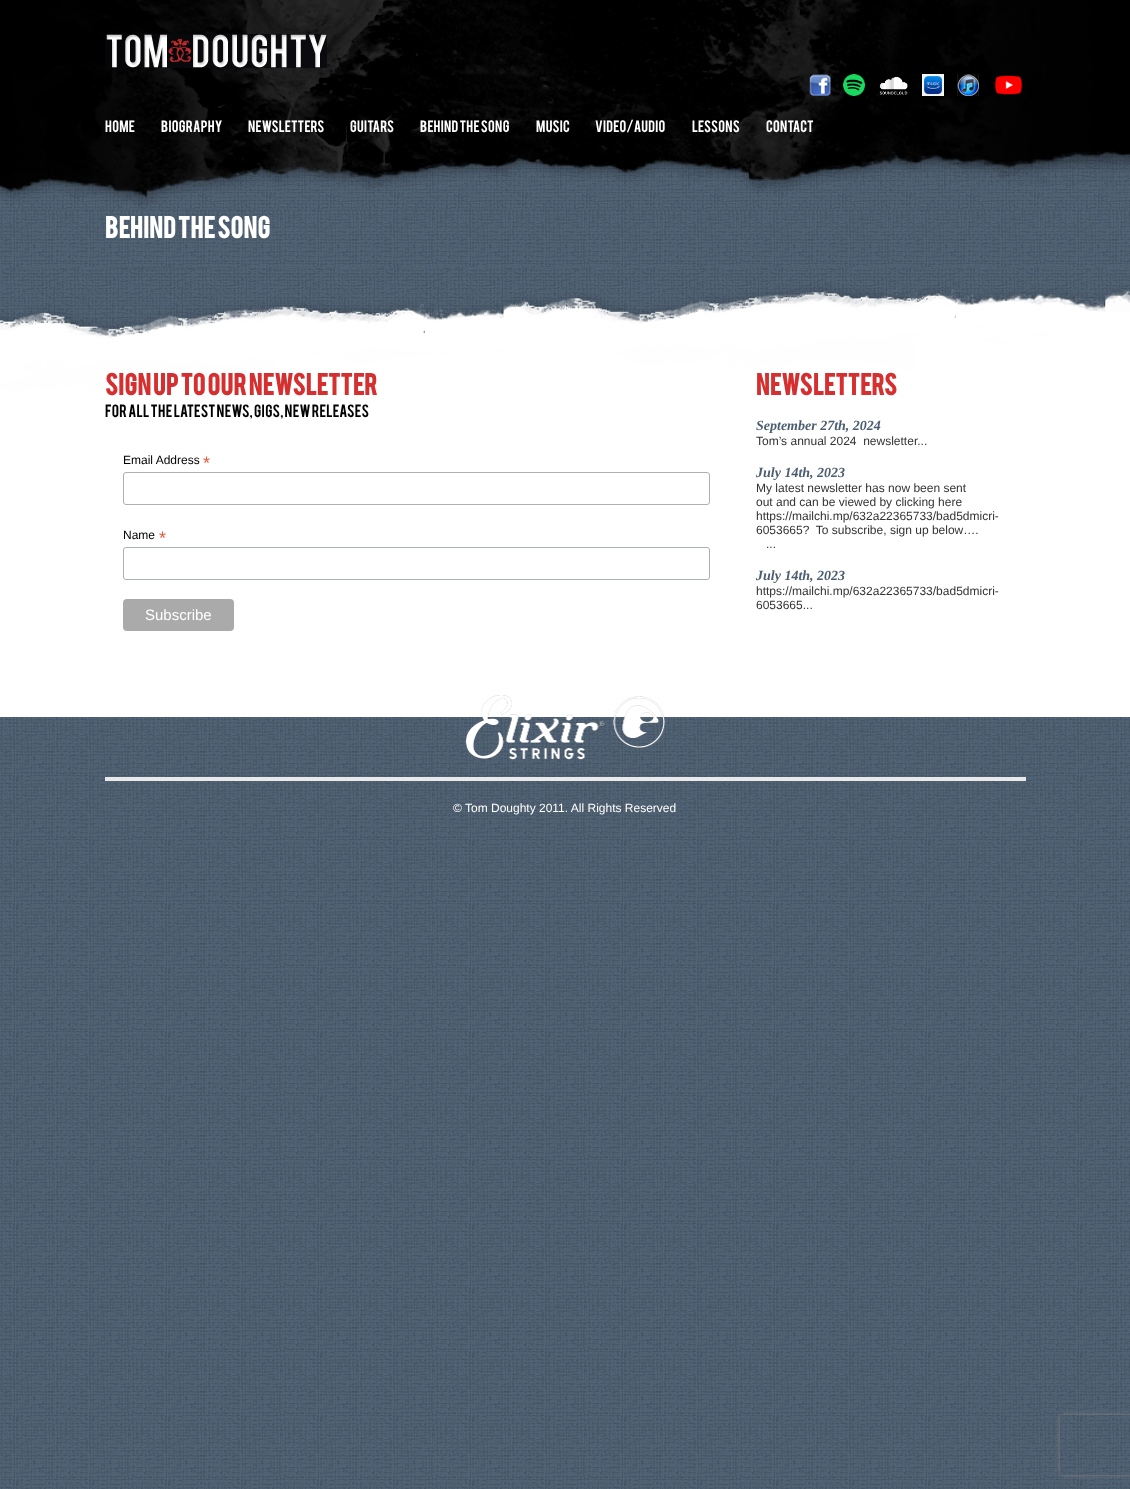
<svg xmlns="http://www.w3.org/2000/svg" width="1130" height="1489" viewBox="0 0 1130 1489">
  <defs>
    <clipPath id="clip1"><path d="M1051 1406H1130V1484H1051ZM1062 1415H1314C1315 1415 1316 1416 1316 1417V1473C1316 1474 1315 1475 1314 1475H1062C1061 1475 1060 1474 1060 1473V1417C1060 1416 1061 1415 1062 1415Z" clip-rule="evenodd"/></clipPath>
  </defs>
  <rect width="100%" height="100%" fill="rgb(255,255,255)"/>
  <image x="0" y="210" width="1130" height="1279" href="pic1.png"/>
  <image x="0" y="0" width="1130" height="210" href="pic2.png"/>
  <image x="105" y="34" width="222" height="34" href="pic3.png"/>
  <image x="809" y="74" width="22" height="22" href="pic4.png"/>
  <image x="843" y="74" width="22" height="22" href="pic5.png"/>
  <image x="879" y="77" width="29" height="18" href="pic6.png"/>
  <image x="922" y="74" width="22" height="22" href="pic7.png"/>
  <image x="957" y="74" width="22" height="22" href="pic8.png"/>
  <image x="995" y="75" width="27" height="20" href="pic9.png"/>
  <g font-family="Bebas" font-size="13" fill="rgb(255,255,255)">
    <text x="105" y="132">HOME</text>
    <text x="161" y="132">BIOGRAPHY</text>
    <text x="248" y="132">NEWSLETTERS</text>
    <text x="350" y="132">GUITARS</text>
    <text x="420" y="132">BEHIND THE SONG</text>
    <text x="536" y="132">MUSIC</text>
    <text x="595" y="132">VIDEO/AUDIO</text>
    <text x="692" y="132">LESSONS</text>
    <text x="766" y="132">CONTACT</text>
  </g>
  <text x="105" y="238" font-family="Bebas" font-size="24" font-weight="bold" fill="rgb(255,255,255)">Behind The Song</text>
  <image x="0" y="267" width="1130" height="450" href="pic10.png"/>
  <rect x="105" y="777" width="921" height="4" fill="rgb(234,233,233)"/>
  <text x="105" y="395" font-family="Bebas" font-size="24" font-weight="bold" fill="rgb(213,47,47)">Sign up to our newsletter</text>
  <text x="105" y="417" font-family="Bebas" font-size="14" fill="rgb(0,0,0)">for all the latest news, gigs, new releases</text>
  <text x="123" y="464" font-family="Liberation Sans" font-size="12" fill="rgb(0,0,0)">Email Address</text>
  <text x="203" y="469" font-family="Liberation Sans" font-size="18" fill="rgb(232,92,65)">*</text>
  <rect x="123.5" y="472.5" width="586" height="32" rx="2.5" fill="none" stroke="rgb(171,176,178)"/>
  <text x="123" y="539" font-family="Liberation Sans" font-size="12" fill="rgb(0,0,0)">Name</text>
  <text x="159" y="544" font-family="Liberation Sans" font-size="18" fill="rgb(232,92,65)">*</text>
  <rect x="123.5" y="547.5" width="586" height="32" rx="2.5" fill="none" stroke="rgb(171,176,178)"/>
  <rect x="123" y="599" width="111" height="32" rx="4" fill="rgb(170,170,170)"/>
  <text x="145" y="620" font-family="Liberation Sans" font-size="15" fill="rgb(255,255,255)">Subscribe</text>
  <text x="756" y="395" font-family="Bebas" font-size="24" font-weight="bold" fill="rgb(213,47,47)">Newsletters</text>
  <text x="756" y="430" font-family="Liberation Serif" font-size="14" font-weight="bold" font-style="italic" fill="rgb(75,93,111)">September 27th, 2024</text>
  <text x="756" y="445" font-family="Liberation Sans" font-size="12" fill="rgb(51,51,51)" xml:space="preserve">Tom’s annual 2024  newsletter...</text>
  <text x="756" y="477" font-family="Liberation Serif" font-size="14" font-weight="bold" font-style="italic" fill="rgb(75,93,111)">July 14th, 2023</text>
  <g font-family="Liberation Sans" font-size="12" fill="rgb(51,51,51)">
    <text xml:space="preserve"><tspan x="756" y="492">My latest newsletter has now been sent</tspan><tspan x="756" y="506">out and can be viewed by clicking here</tspan><tspan x="756" y="520">https://mailchi.mp/632a22365733/bad5dmicri-</tspan><tspan x="756" y="534">6053665?  To subscribe, sign up below….</tspan></text>
    <text x="766" y="548">...</text>
  </g>
  <text x="756" y="580" font-family="Liberation Serif" font-size="14" font-weight="bold" font-style="italic" fill="rgb(75,93,111)">July 14th, 2023</text>
  <g font-family="Liberation Sans" font-size="12" fill="rgb(51,51,51)">
    <text>
      <tspan x="756" y="595">https://mailchi.mp/632a22365733/bad5dmicri-</tspan>
      <tspan x="756" y="609">6053665...</tspan>
    </text>
  </g>
  <image x="465" y="695" width="201" height="65" href="pic11.png"/>
  <text x="453" y="812" font-family="Liberation Sans" font-size="12" fill="rgb(255,255,255)">© Tom Doughty 2011. All Rights Reserved</text>
  <g clip-path="url(#clip1)">
    <rect x="1060" y="1415" width="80" height="60" rx="2" fill="rgb(128,128,128)" filter="blur(2.5px)"/>
  </g>
</svg>
